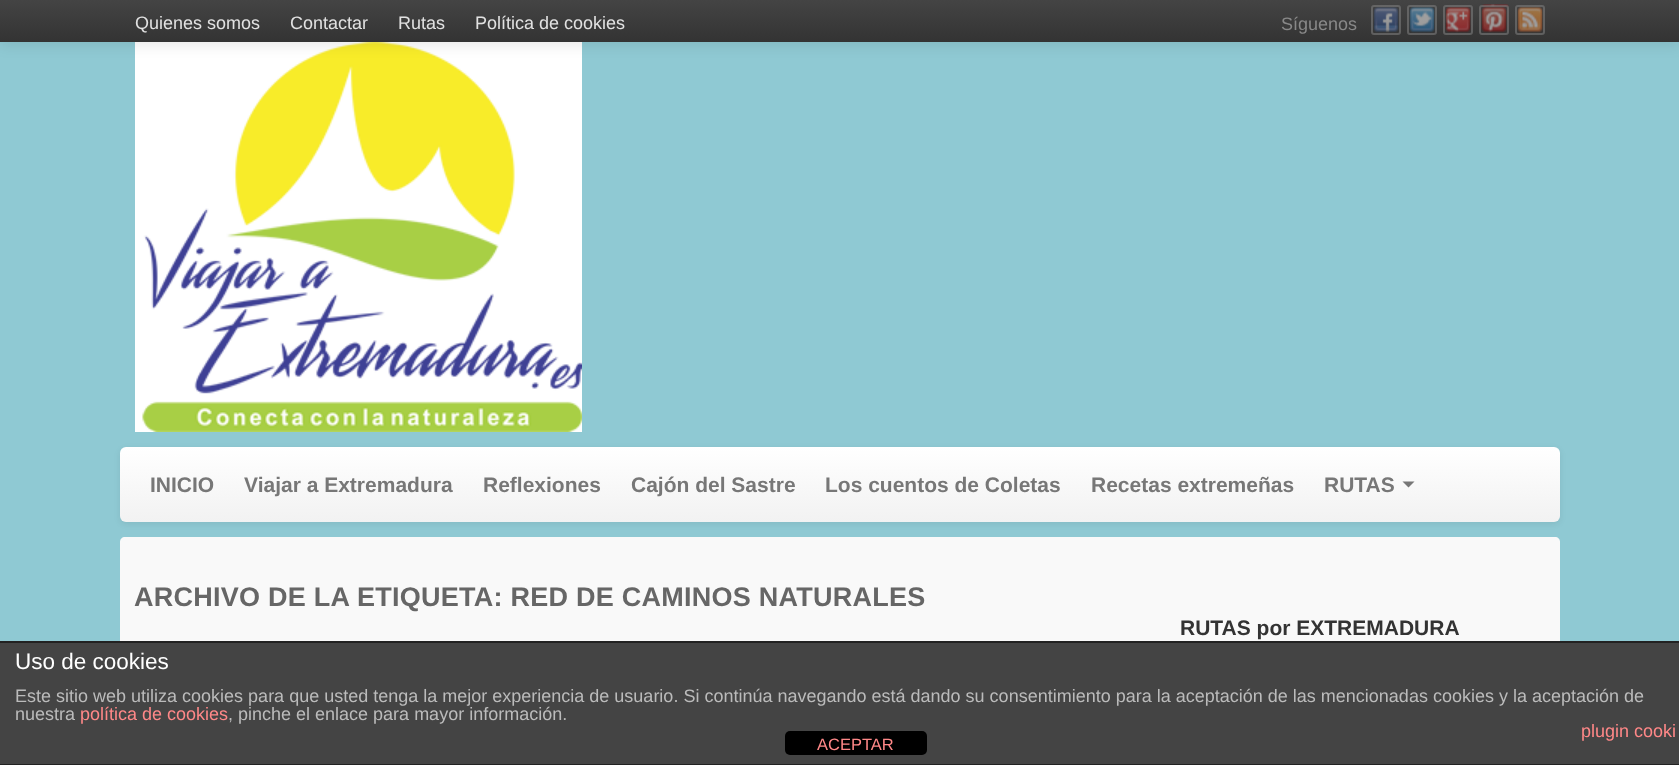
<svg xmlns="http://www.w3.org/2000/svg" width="1679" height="765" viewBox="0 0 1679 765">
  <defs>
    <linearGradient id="g1" gradientUnits="userSpaceOnUse" x1="840" y1="0" x2="840" y2="42"><stop offset="0" stop-color="rgb(68,68,68)"/><stop offset="1" stop-color="rgb(51,51,51)"/></linearGradient>
    <linearGradient id="g2" gradientUnits="userSpaceOnUse" x1="840" y1="447" x2="840" y2="522"><stop offset="0" stop-color="rgb(255,255,255)"/><stop offset="1" stop-color="rgb(242,242,242)"/></linearGradient>
  </defs>
  <rect width="100%" height="100%" fill="rgb(143,201,211)"/>
  <image x="135" y="42" width="447" height="390" href="pic6.png"/>
  <rect x="0" y="2" width="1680" height="42" fill="rgba(0,0,0,0.1)" filter="blur(7.5px)"/>
  <rect x="0" y="0" width="1679" height="42" fill="url(#g1)"/>
  <g font-family="Liberation Sans" font-size="18" fill="rgb(225,225,225)">
    <text x="135" y="29">Quienes somos</text>
    <text x="290" y="29">Contactar</text>
    <text x="398" y="29">Rutas</text>
    <text x="475" y="29">Política de cookies</text>
  </g>
  <text x="1281" y="30" font-family="Liberation Sans" font-size="18" fill="rgb(136,136,136)">Síguenos</text>
  <image x="1373" y="7" width="26" height="26" href="pic1.png"/>
  <rect x="1372" y="6" width="28" height="28" rx="2" fill="none" stroke="rgba(136,136,136,0.5)" stroke-width="2"/>
  <image x="1409" y="6" width="26" height="27" href="pic2.png"/>
  <rect x="1408" y="6" width="28" height="28" rx="2" fill="none" stroke="rgba(136,136,136,0.5)" stroke-width="2"/>
  <image x="1445" y="6" width="26" height="27" href="pic3.png"/>
  <rect x="1444" y="6" width="28" height="28" rx="2" fill="none" stroke="rgba(136,136,136,0.5)" stroke-width="2"/>
  <image x="1481" y="4" width="28" height="29" href="pic4.png"/>
  <rect x="1480" y="6" width="28" height="28" rx="2" fill="none" stroke="rgba(136,136,136,0.5)" stroke-width="2"/>
  <image x="1517" y="6" width="26" height="27" href="pic5.png"/>
  <rect x="1516" y="6" width="28" height="28" rx="2" fill="none" stroke="rgba(136,136,136,0.5)" stroke-width="2"/>
  <rect x="120" y="449" width="1440" height="75" rx="6" fill="rgba(0,0,0,0.07)" filter="blur(3px)"/>
  <rect x="120" y="447" width="1440" height="75" rx="6" fill="url(#g2)"/>
  <g font-family="Liberation Sans" font-size="21" font-weight="bold" fill="rgb(119,119,119)">
    <text x="150" y="492">INICIO</text>
    <text x="244" y="492">Viajar a Extremadura</text>
    <text x="483" y="492">Reflexiones</text>
    <text x="631" y="492">Cajón del Sastre</text>
    <text x="825" y="492">Los cuentos de Coletas</text>
    <text x="1091" y="492">Recetas extremeñas</text>
    <text x="1324" y="492">RUTAS</text>
  </g>
  <path d="M1402.5 481.5H1414.5L1408.5 487.5Z" fill="rgb(119,119,119)"/>
  <path d="M125 537H1555C1558 537 1560 539 1560 542V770H120V542C120 539 122 537 125 537Z" fill="rgb(249,249,249)"/>
  <text x="134" y="606" font-family="Liberation Sans" font-size="27" font-weight="bold" letter-spacing="0.25" fill="rgb(102,102,102)">ARCHIVO DE LA ETIQUETA: RED DE CAMINOS NATURALES</text>
  <text x="1180" y="635" font-family="Liberation Sans" font-size="21" font-weight="bold" fill="rgb(51,51,51)">RUTAS por EXTREMADURA</text>
  <rect x="0" y="643" width="1679" height="121" fill="rgb(68,68,68)"/>
  <rect x="0" y="641" width="1679" height="2" fill="rgb(34,34,34)"/>
  <rect x="0" y="764" width="1679" height="1" fill="rgb(34,34,34)"/>
  <text x="15" y="669" font-family="Liberation Sans" font-size="22.5" fill="rgb(255,255,255)">Uso de cookies</text>
  <g font-family="Liberation Sans" font-size="18" fill="rgb(187,187,187)">
    <text>
      <tspan x="15" y="702">Este sitio web utiliza cookies para que usted tenga la mejor experiencia de usuario. Si continúa navegando está dando su consentimiento para la aceptación de las mencionadas cookies y la aceptación de</tspan>
      <tspan x="15" y="720">nuestra</tspan>
    </text>
  </g>
  <text x="80" y="720" font-family="Liberation Sans" font-size="18" fill="rgb(255,136,136)">política de cookies</text>
  <text x="228" y="720" font-family="Liberation Sans" font-size="18" fill="rgb(187,187,187)">, pinche el enlace para mayor información.</text>
  <text x="1581" y="737" font-family="Liberation Sans" font-size="18" fill="rgb(255,136,136)">plugin cooki</text>
  <rect x="785" y="731" width="142" height="24" rx="5" fill="rgb(0,0,0)"/>
  <text x="817" y="750" font-family="Liberation Sans" font-size="16.5" fill="rgb(255,136,136)">ACEPTAR</text>
</svg>
